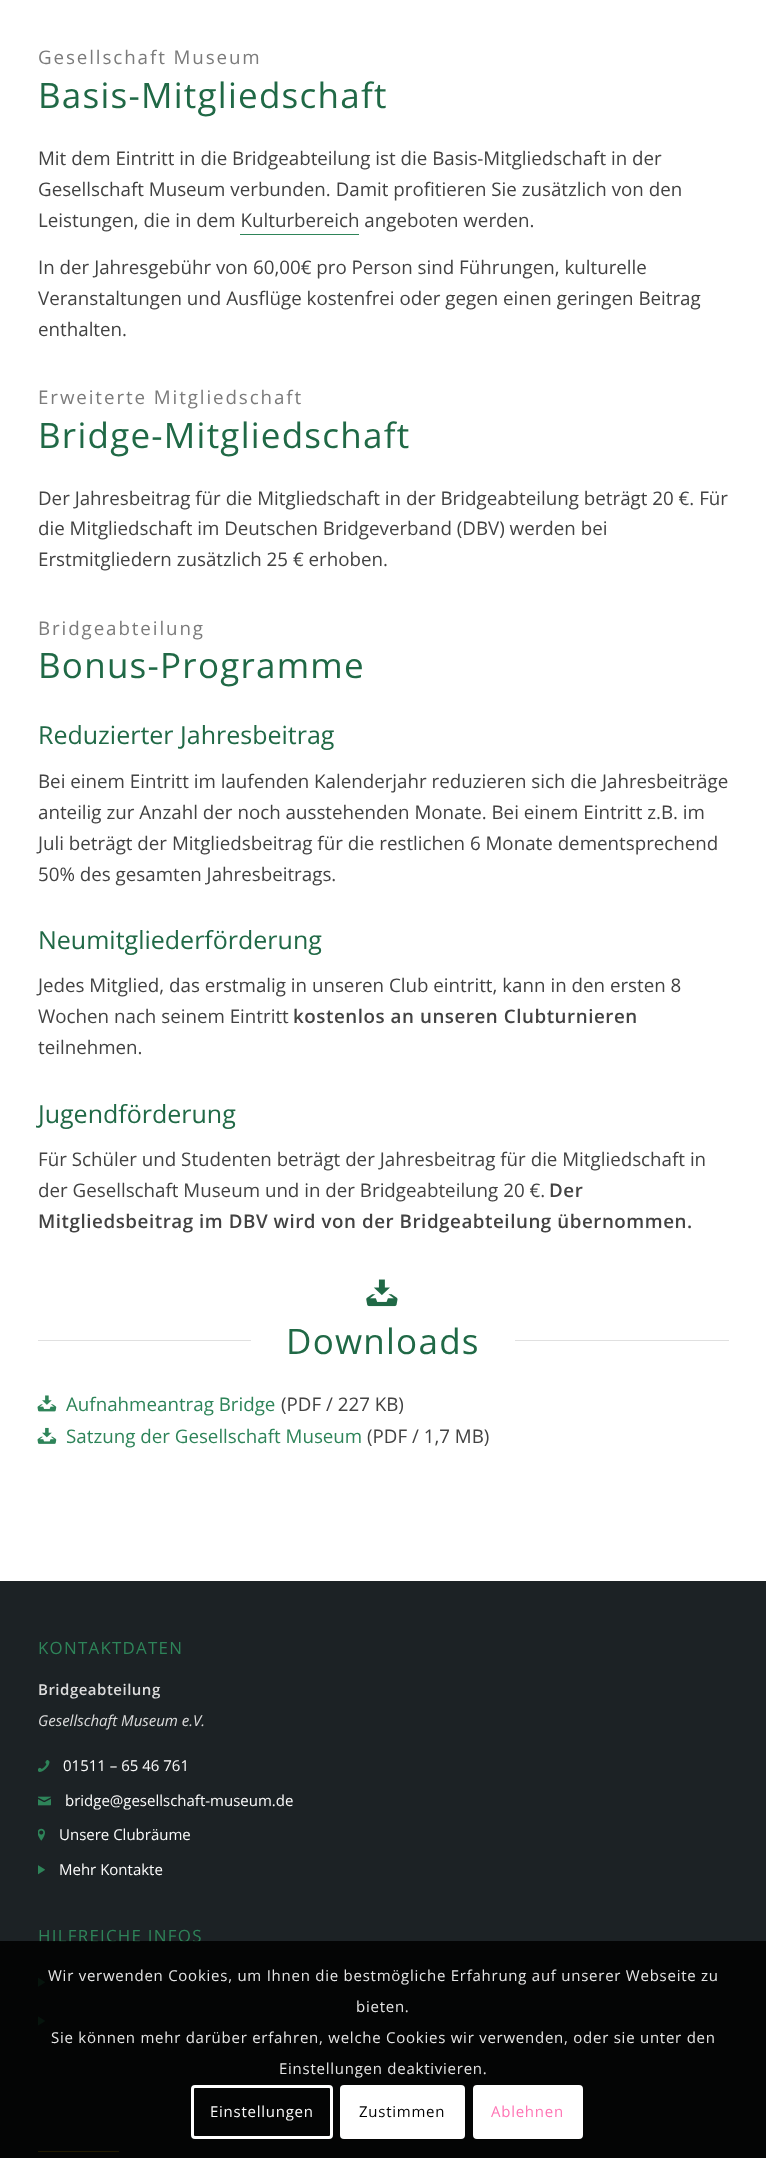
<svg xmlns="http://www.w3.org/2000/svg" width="766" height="2158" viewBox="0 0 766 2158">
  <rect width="100%" height="100%" fill="rgb(255,255,255)"/>
  <text x="38" y="64" font-family="Open Sans" font-size="18.75" letter-spacing="1.9" fill="rgb(123,123,123)">Gesellschaft Museum</text>
  <text x="38" y="108" font-family="Open Sans" font-size="35" letter-spacing="1.25" fill="rgb(32,105,70)">Basis-Mitgliedschaft</text>
  <g font-family="Open Sans" font-size="18.75" fill="rgb(66,66,66)">
    <text>
      <tspan x="38" y="165">Mit dem Eintritt in die Bridgeabteilung ist die Basis-Mitgliedschaft in der</tspan>
      <tspan x="38" y="196">Gesellschaft Museum verbunden. Damit profitieren Sie zusätzlich von den</tspan>
      <tspan x="38" y="227">Leistungen, die in dem Kulturbereich angeboten werden.</tspan>
    </text>
  </g>
  <rect x="240" y="234" width="119" height="1" fill="rgb(46,132,89)"/>
  <g font-family="Open Sans" font-size="18.75" fill="rgb(66,66,66)">
    <text>
      <tspan x="38" y="274">In der Jahresgebühr von 60,00€ pro Person sind Führungen, kulturelle</tspan>
      <tspan x="38" y="305">Veranstaltungen und Ausflüge kostenfrei oder gegen einen geringen Beitrag</tspan>
      <tspan x="38" y="336">enthalten.</tspan>
    </text>
  </g>
  <text x="38" y="404" font-family="Open Sans" font-size="18.75" letter-spacing="1.9" fill="rgb(123,123,123)">Erweiterte Mitgliedschaft</text>
  <text x="38" y="448" font-family="Open Sans" font-size="35" letter-spacing="1.25" fill="rgb(32,105,70)">Bridge-Mitgliedschaft</text>
  <g font-family="Open Sans" font-size="18.75" fill="rgb(66,66,66)">
    <text>
      <tspan x="38" y="505">Der Jahresbeitrag für die Mitgliedschaft in der Bridgeabteilung beträgt 20 €. Für</tspan>
      <tspan x="38" y="535">die Mitgliedschaft im Deutschen Bridgeverband (DBV) werden bei</tspan>
      <tspan x="38" y="566">Erstmitgliedern zusätzlich 25 € erhoben.</tspan>
    </text>
  </g>
  <text x="38" y="635" font-family="Open Sans" font-size="18.75" letter-spacing="1.9" fill="rgb(123,123,123)">Bridgeabteilung</text>
  <text x="38" y="678" font-family="Open Sans" font-size="35" letter-spacing="1.25" fill="rgb(32,105,70)">Bonus-Programme</text>
  <text x="38" y="744" font-family="Open Sans" font-size="25" fill="rgb(32,105,70)">Reduzierter Jahresbeitrag</text>
  <g font-family="Open Sans" font-size="18.75" fill="rgb(66,66,66)">
    <text>
      <tspan x="38" y="788">Bei einem Eintritt im laufenden Kalenderjahr reduzieren sich die Jahresbeiträge</tspan>
      <tspan x="38" y="819">anteilig zur Anzahl der noch ausstehenden Monate. Bei einem Eintritt z.B. im</tspan>
      <tspan x="38" y="850">Juli beträgt der Mitgliedsbeitrag für die restlichen 6 Monate dementsprechend</tspan>
      <tspan x="38" y="881">50% des gesamten Jahresbeitrags.</tspan>
    </text>
  </g>
  <text x="38" y="949" font-family="Open Sans" font-size="25" fill="rgb(32,105,70)">Neumitgliederförderung</text>
  <g font-family="Open Sans" font-size="18.75" fill="rgb(66,66,66)">
    <text>
      <tspan x="38" y="992">Jedes Mitglied, das erstmalig in unseren Club eintritt, kann in den ersten 8</tspan>
      <tspan x="38" y="1023">Wochen nach seinem Eintritt</tspan>
    </text>
  </g>
  <text x="293" y="1023" font-family="Open Sans" font-size="18.75" font-weight="600" letter-spacing="0.55" fill="rgb(66,66,66)">kostenlos an unseren Clubturnieren</text>
  <text x="38" y="1054" font-family="Open Sans" font-size="18.75" fill="rgb(66,66,66)">teilnehmen.</text>
  <text x="38" y="1123" font-family="Open Sans" font-size="25" fill="rgb(32,105,70)">Jugendförderung</text>
  <g font-family="Open Sans" font-size="18.75" fill="rgb(66,66,66)">
    <text>
      <tspan x="38" y="1166">Für Schüler und Studenten beträgt der Jahresbeitrag für die Mitgliedschaft in</tspan>
      <tspan x="38" y="1197">der Gesellschaft Museum und in der Bridgeabteilung 20 €.</tspan>
    </text>
  </g>
  <g font-family="Open Sans" font-size="18.75" font-weight="600" letter-spacing="0.55" fill="rgb(66,66,66)">
    <text x="549" y="1197">Der</text>
    <text x="38" y="1228">Mitgliedsbeitrag im DBV wird von der Bridgeabteilung übernommen.</text>
  </g>
  <image x="366" y="1279" width="32" height="28" href="pic1.png"/>
  <rect x="38" y="1340" width="213" height="1" fill="rgb(224,224,224)"/>
  <text x="286" y="1354" font-family="Open Sans" font-size="35" letter-spacing="1.25" fill="rgb(32,105,70)">Downloads</text>
  <rect x="515" y="1340" width="214" height="1" fill="rgb(224,224,224)"/>
  <image x="37" y="1395" width="20" height="17" href="pic2.png"/>
  <text x="66" y="1411" font-family="Open Sans" font-size="18.75" fill="rgb(46,132,89)">Aufnahmeantrag Bridge</text>
  <text x="281" y="1411" font-family="Open Sans" font-size="18.75" fill="rgb(66,66,66)">(PDF / 227 KB)</text>
  <image x="37" y="1427" width="20" height="17" href="pic3.png"/>
  <text x="66" y="1443" font-family="Open Sans" font-size="18.75" fill="rgb(46,132,89)">Satzung der Gesellschaft Museum</text>
  <text x="367" y="1443" font-family="Open Sans" font-size="18.75" fill="rgb(66,66,66)">(PDF / 1,7 MB)</text>
  <rect x="0" y="1581" width="766" height="577" fill="rgb(28,34,37)"/>
  <text x="38" y="1654" font-family="Open Sans" font-size="16.9" letter-spacing="1.25" fill="rgb(46,132,89)">KONTAKTDATEN</text>
  <text x="38" y="1695" font-family="Open Sans" font-size="15" font-weight="600" letter-spacing="0.5" fill="rgb(221,221,221)">Bridgeabteilung</text>
  <text x="38" y="1726" font-family="Open Sans" font-size="15" font-style="italic" fill="rgb(221,221,221)">Gesellschaft Museum e.V.</text>
  <image x="38" y="1760" width="12" height="12" href="pic4.png"/>
  <text x="63" y="1771" font-family="Open Sans" font-size="15" fill="rgb(252,252,252)">01511 – 65 46 761</text>
  <image x="38" y="1796" width="13" height="10" href="pic5.png"/>
  <text x="65" y="1806" font-family="Open Sans" font-size="15" fill="rgb(252,252,252)">bridge@gesellschaft-museum.de</text>
  <image x="38" y="1828" width="7" height="13" href="pic6.png"/>
  <text x="59" y="1840" font-family="Open Sans" font-size="15" fill="rgb(252,252,252)">Unsere Clubräume</text>
  <image x="38" y="1865" width="7" height="10" href="pic7.png"/>
  <text x="59" y="1875" font-family="Open Sans" font-size="15" fill="rgb(252,252,252)">Mehr Kontakte</text>
  <text x="38" y="1942" font-family="Open Sans" font-size="16.9" letter-spacing="1.25" fill="rgb(46,132,89)">HILFREICHE INFOS</text>
  <image x="38" y="1977" width="7" height="10" href="pic8.png"/>
  <image x="38" y="2016" width="7" height="10" href="pic9.png"/>
  <rect x="38" y="2151" width="81" height="1" fill="rgb(226,180,7)"/>
  <rect x="0" y="1941" width="766" height="217" fill="rgba(0,0,0,0.85)"/>
  <g font-family="Open Sans" font-size="15" letter-spacing="0.75" fill="rgb(230,230,230)">
    <text x="48" y="1981">Wir verwenden Cookies, um Ihnen die bestmögliche Erfahrung auf unserer Webseite zu</text>
    <text x="356" y="2012">bieten.</text>
    <text x="51" y="2043">Sie können mehr darüber erfahren, welche Cookies wir verwenden, oder sie unter den</text>
    <text x="279" y="2074">Einstellungen deaktivieren.</text>
  </g>
  <rect x="192.5" y="2086.5" width="139" height="51" rx="2.5" fill="none" stroke="rgb(255,255,255)" stroke-width="3"/>
  <text x="210" y="2117" font-family="Open Sans" font-size="15" letter-spacing="0.75" fill="rgb(252,252,252)">Einstellungen</text>
  <rect x="340" y="2085" width="125" height="54" rx="4" fill="rgb(255,255,255)"/>
  <text x="359" y="2117" font-family="Open Sans" font-size="15" letter-spacing="0.75" fill="rgb(0,0,0)">Zustimmen</text>
  <rect x="474.5" y="2086.5" width="107" height="51" rx="2.5" fill="rgb(255,255,255)" stroke="rgb(255,255,255)" stroke-width="3"/>
  <text x="491" y="2117" font-family="Open Sans" font-size="15" letter-spacing="0.75" fill="rgb(255,117,181)">Ablehnen</text>
</svg>
